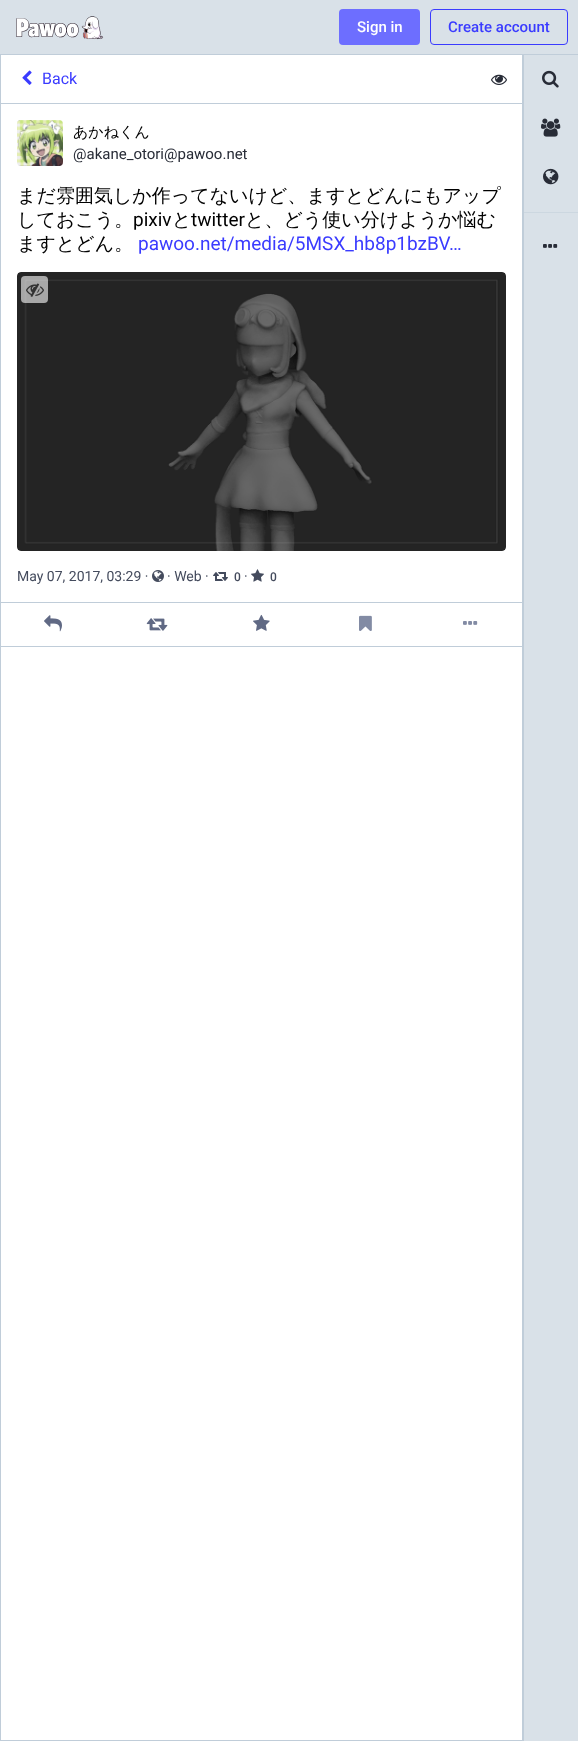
<svg xmlns="http://www.w3.org/2000/svg" width="578" height="1741" viewBox="0 0 578 1741">
  <rect width="100%" height="100%" fill="rgb(255,255,255)"/>
  <rect x="0" y="0" width="578" height="54" fill="rgb(217,225,232)"/>
  <rect x="0" y="54" width="578" height="1" fill="rgb(192,205,217)"/>
  <image x="16" y="16" width="88" height="24" href="pic1.png"/>
  <rect x="339" y="9" width="81" height="36" rx="4" fill="rgb(109,110,255)"/>
  <text x="357" y="32" font-family="Roboto" font-size="15" font-weight="500" fill="rgb(255,255,255)">Sign in</text>
  <rect x="430.5" y="9.5" width="137" height="35" rx="3.5" fill="none" stroke="rgb(58,59,255)"/>
  <text x="448" y="32" font-family="Roboto" font-size="15" font-weight="500" fill="rgb(58,59,255)">Create account</text>
  <rect x="522" y="55" width="1" height="1686" fill="rgb(192,205,217)"/>
  <rect x="0" y="103" width="523" height="1" fill="rgb(192,205,217)"/>
  <rect x="0" y="55" width="1" height="49" fill="rgb(192,205,217)"/>
  <image x="22" y="70" width="10" height="15" href="pic2.png"/>
  <text x="42" y="84" font-family="Roboto" font-size="16" fill="rgb(58,59,255)">Back</text>
  <image x="491" y="74" width="16" height="11" href="pic3.png"/>
  <rect x="0" y="1740" width="523" height="1" fill="rgb(192,205,217)"/>
  <rect x="0" y="104" width="1" height="1637" fill="rgb(192,205,217)"/>
  <image x="17" y="120" width="46" height="46" href="pic4.png"/>
  <text x="73" y="137" font-family="WenQuanYi Zen Hei" font-size="15" font-weight="500" fill="rgb(0,0,0)">あかねくん</text>
  <text x="73" y="159" font-family="Roboto" font-size="15" fill="rgb(40,44,55)">@akane_otori@pawoo.net</text>
  <g font-family="WenQuanYi Zen Hei" font-size="19" font-weight="500" fill="rgb(0,0,0)">
    <text>
      <tspan x="17" y="202">まだ雰囲気しか作ってないけど、ますとどんにもアップ</tspan>
      <tspan x="17" y="226">しておこう。</tspan>
    </text>
  </g>
  <text x="133" y="226" font-family="Roboto" font-size="19" fill="rgb(0,0,0)">pixiv</text>
  <text x="172" y="226" font-family="WenQuanYi Zen Hei" font-size="19" font-weight="500" fill="rgb(0,0,0)">と</text>
  <text x="191" y="226" font-family="Roboto" font-size="19" fill="rgb(0,0,0)">twitter</text>
  <g font-family="WenQuanYi Zen Hei" font-size="19" font-weight="500" fill="rgb(0,0,0)">
    <text x="245" y="226">と、どう使い分けようか悩む</text>
    <text x="17" y="250">ますとどん。</text>
  </g>
  <g font-family="Roboto" font-size="19" fill="rgb(58,59,255)">
    <text x="138" y="250">pawoo.net/media/5MSX_hb8p1bzBV</text>
    <text x="449" y="250">…</text>
  </g>
  <image x="17" y="272" width="489" height="279" href="pic5.png"/>
  <rect x="21" y="276" width="27" height="27" rx="4" fill="rgba(255,255,255,0.6)"/>
  <image x="26" y="283" width="18" height="14" href="pic6.png"/>
  <text x="17" y="581" font-family="Roboto" font-size="14" fill="rgb(68,75,93)">May 07, 2017, 03:29 ·</text>
  <image x="152" y="570" width="12" height="12" href="pic7.png"/>
  <text x="167" y="581" font-family="Roboto" font-size="14" fill="rgb(68,75,93)">· Web ·</text>
  <image x="213" y="572" width="15" height="9" href="pic8.png"/>
  <text x="234" y="581" font-family="Roboto" font-size="12" font-weight="500" fill="rgb(68,75,93)">0</text>
  <text x="244" y="581" font-family="Roboto" font-size="14" fill="rgb(68,75,93)">·</text>
  <image x="251" y="569" width="13" height="13" href="pic9.png"/>
  <text x="270" y="581" font-family="Roboto" font-size="12" font-weight="500" fill="rgb(68,75,93)">0</text>
  <rect x="1" y="602" width="521" height="1" fill="rgb(192,205,217)"/>
  <rect x="1" y="646" width="521" height="1" fill="rgb(192,205,217)"/>
  <image x="44" y="615" width="18" height="17" href="pic10.png"/>
  <image x="146" y="618" width="22" height="13" href="pic11.png"/>
  <image x="253" y="614" width="17" height="17" href="pic12.png"/>
  <image x="359" y="615" width="13" height="16" href="pic13.png"/>
  <image x="463" y="621" width="15" height="4" href="pic14.png"/>
  <rect x="524" y="55" width="54" height="1686" fill="rgb(217,225,232)"/>
  <rect x="523" y="55" width="1" height="1686" fill="rgb(192,205,217)"/>
  <image x="542" y="70" width="17" height="18" href="pic15.png"/>
  <image x="541" y="118" width="20" height="19" href="pic16.png"/>
  <image x="543" y="168" width="16" height="17" href="pic17.png"/>
  <rect x="524" y="212" width="54" height="1" fill="rgb(204,215,224)"/>
  <image x="543" y="244" width="15" height="4" href="pic18.png"/>
</svg>
